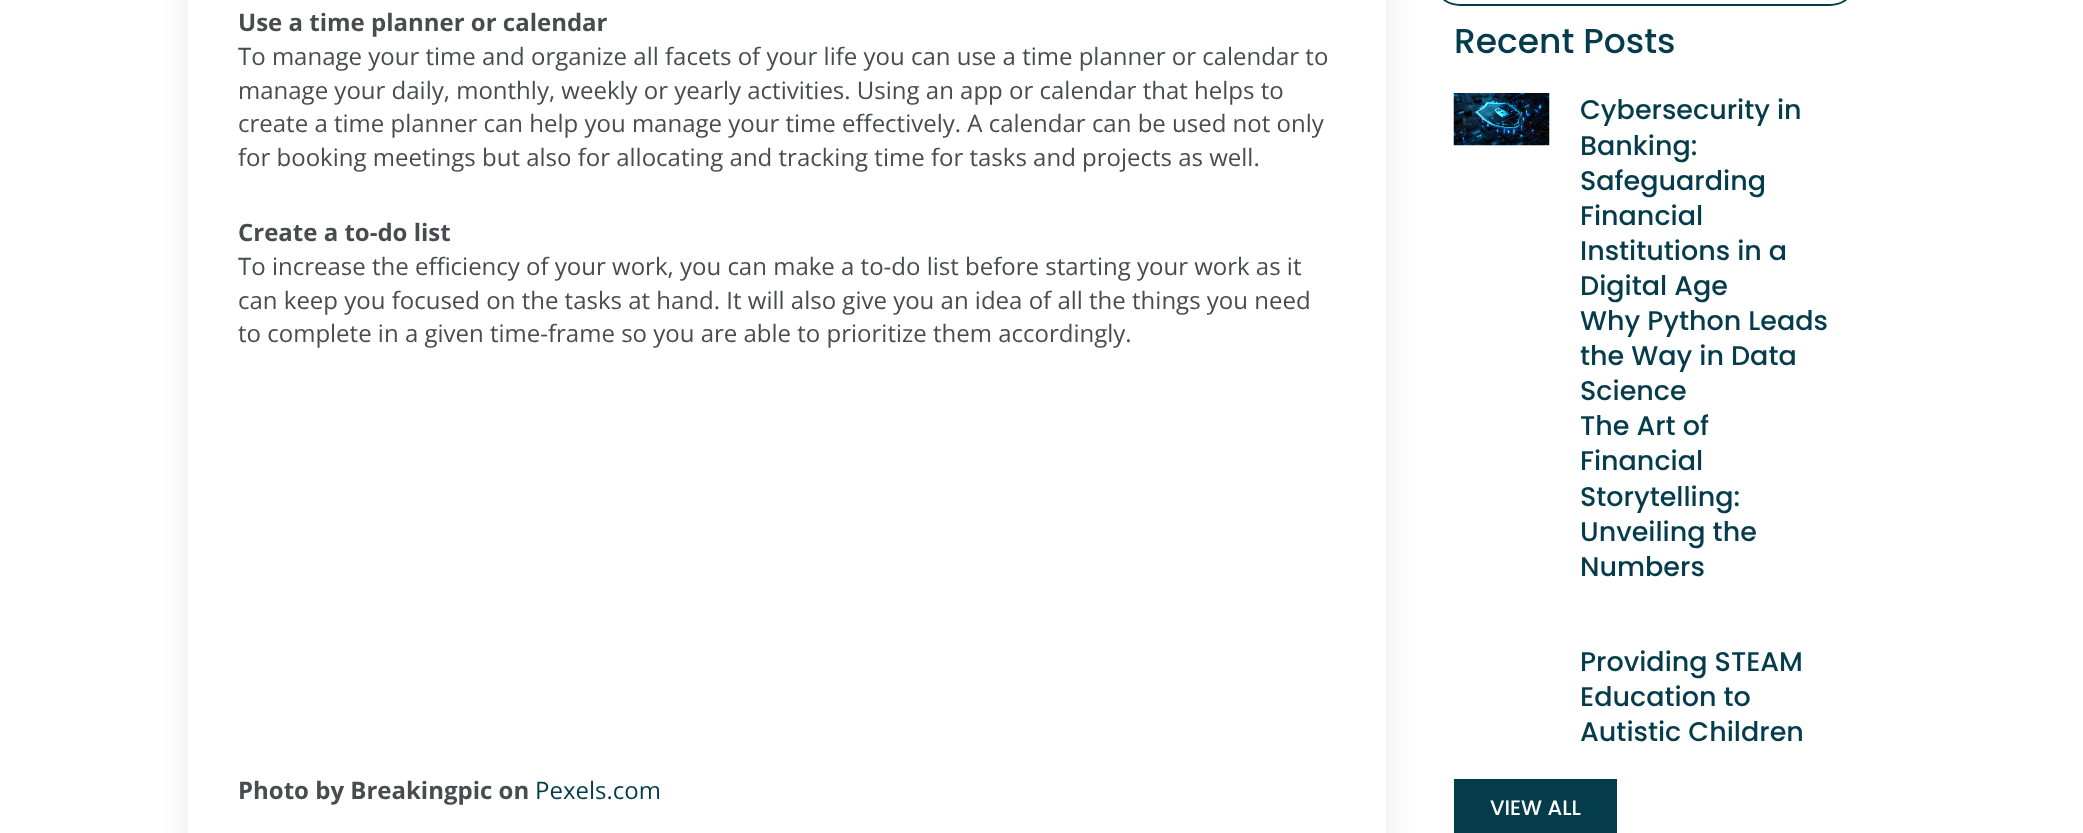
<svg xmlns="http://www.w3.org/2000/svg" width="2083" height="833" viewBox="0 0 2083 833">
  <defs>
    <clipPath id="clip1"><path d="M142 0H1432V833H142ZM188-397H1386V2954H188Z" clip-rule="evenodd"/></clipPath>
  </defs>
  <rect width="100%" height="100%" fill="rgb(255,255,255)"/>
  <g clip-path="url(#clip1)">
    <rect x="188" y="-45" width="1198" height="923" fill="rgba(0,0,0,0.09)" filter="blur(15px)"/>
  </g>
  <text x="238" y="31" font-family="Open Sans" font-size="24" font-weight="bold" fill="rgb(73,76,79)">Use a time planner or calendar</text>
  <g font-family="Open Sans" font-size="24" fill="rgb(73,76,79)">
    <text>
      <tspan x="238" y="65">To manage your time and organize all facets of your life you can use a time planner or calendar to</tspan>
      <tspan x="238" y="99">manage your daily, monthly, weekly or yearly activities. Using an app or calendar that helps to</tspan>
      <tspan x="238" y="132">create a time planner can help you manage your time effectively. A calendar can be used not only</tspan>
      <tspan x="238" y="166">for booking meetings but also for allocating and tracking time for tasks and projects as well.</tspan>
    </text>
  </g>
  <text x="238" y="241" font-family="Open Sans" font-size="24" font-weight="bold" fill="rgb(73,76,79)">Create a to-do list</text>
  <g font-family="Open Sans" font-size="24" fill="rgb(73,76,79)">
    <text>
      <tspan x="238" y="275">To increase the efficiency of your work, you can make a to-do list before starting your work as it</tspan>
      <tspan x="238" y="309">can keep you focused on the tasks at hand. It will also give you an idea of all the things you need</tspan>
      <tspan x="238" y="342">to complete in a given time-frame so you are able to prioritize them accordingly.</tspan>
    </text>
  </g>
  <text x="238" y="799" font-family="Open Sans" font-size="24" font-weight="bold" fill="rgb(73,76,79)">Photo by Breakingpic on</text>
  <text x="535" y="799" font-family="Open Sans" font-size="24" fill="rgb(4,60,76)">Pexels.com</text>
  <rect x="1440" y="-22" width="410" height="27" rx="20" fill="none" stroke="rgb(4,60,76)" stroke-width="2"/>
  <text x="1454" y="53" font-family="Poppins" font-size="34.5" font-weight="500" fill="rgb(4,60,76)">Recent Posts</text>
  <image x="1453" y="93" width="97" height="53" href="pic1.png"/>
  <g font-family="Poppins" font-size="27" font-weight="500" fill="rgb(4,60,76)">
    <text>
      <tspan x="1580" y="119">Cybersecurity in</tspan>
      <tspan x="1580" y="155">Banking:</tspan>
      <tspan x="1580" y="190">Safeguarding</tspan>
      <tspan x="1580" y="225">Financial</tspan>
      <tspan x="1580" y="260">Institutions in a</tspan>
      <tspan x="1580" y="295">Digital Age</tspan>
      <tspan x="1580" y="330">Why Python Leads</tspan>
      <tspan x="1580" y="365">the Way in Data</tspan>
      <tspan x="1580" y="400">Science</tspan>
      <tspan x="1580" y="435">The Art of</tspan>
      <tspan x="1580" y="470">Financial</tspan>
      <tspan x="1580" y="506">Storytelling:</tspan>
      <tspan x="1580" y="541">Unveiling the</tspan>
      <tspan x="1580" y="576">Numbers</tspan>
    </text>
    <text>
      <tspan x="1580" y="671">Providing STEAM</tspan>
      <tspan x="1580" y="706">Education to</tspan>
      <tspan x="1580" y="741">Autistic Children</tspan>
    </text>
  </g>
  <rect x="1454" y="779" width="163" height="54" fill="rgb(4,60,76)"/>
  <text x="1490" y="815" font-family="Poppins" font-size="21" font-weight="500" fill="rgb(255,255,255)">VIEW ALL</text>
</svg>
